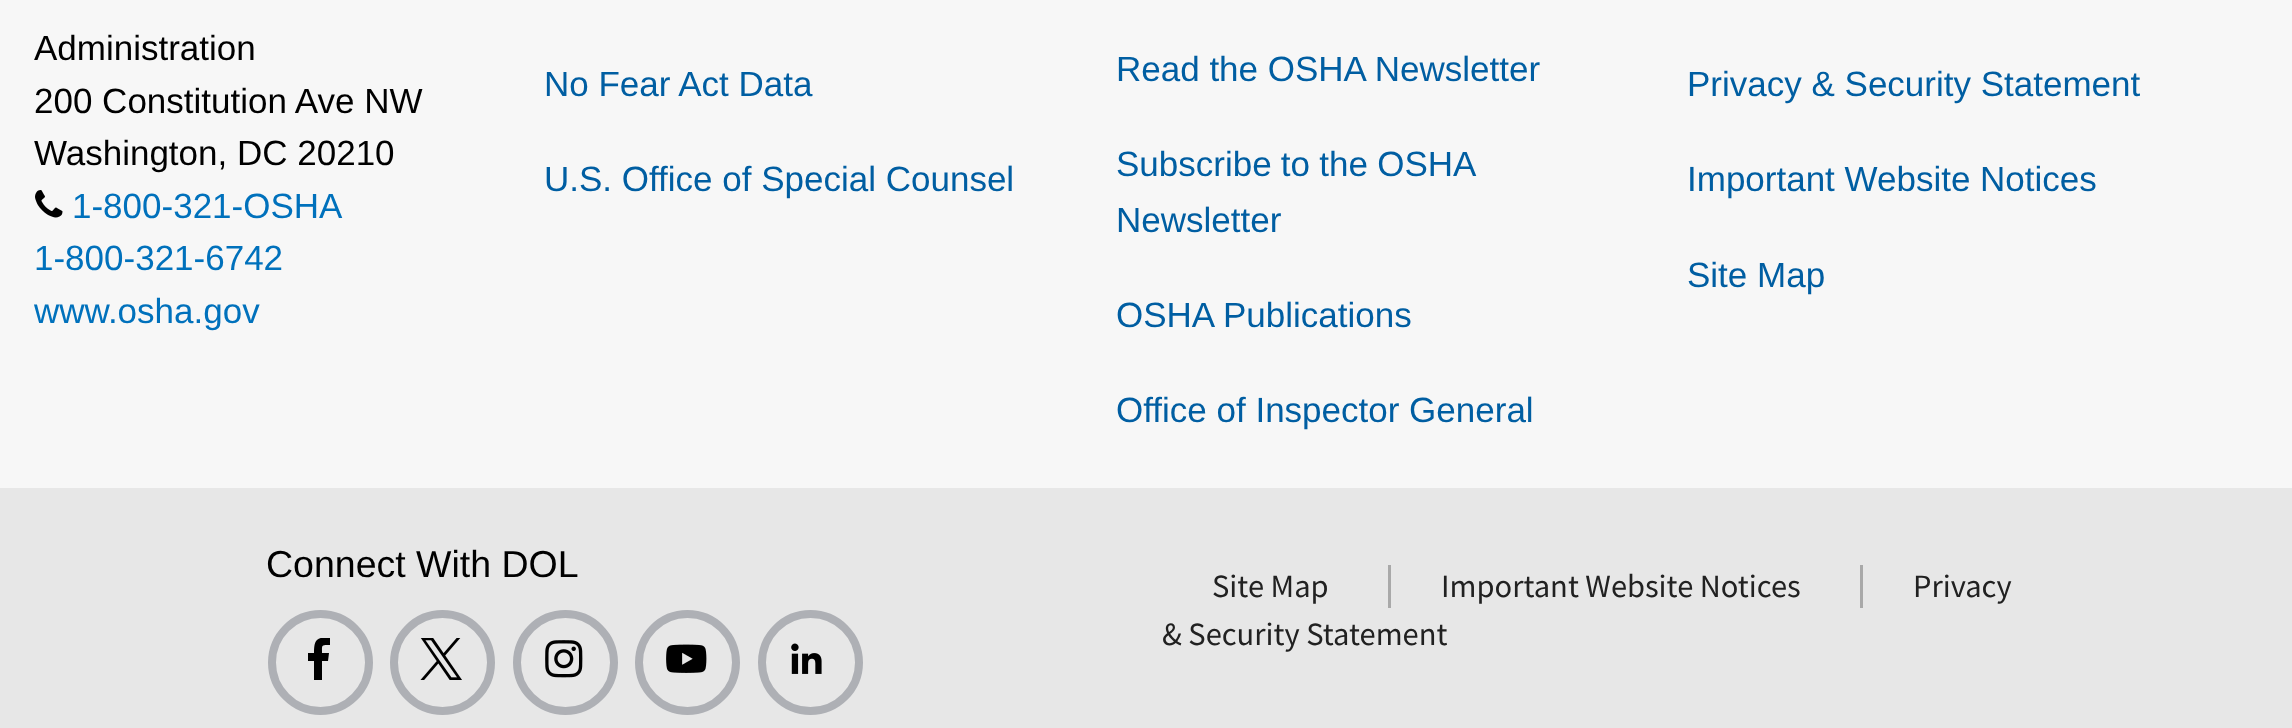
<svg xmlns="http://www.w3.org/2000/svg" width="2292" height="728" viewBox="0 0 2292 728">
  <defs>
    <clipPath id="clip1"><rect x="298" y="638" width="42" height="42"/></clipPath>
  </defs>
  <rect width="100%" height="100%" fill="rgb(231,231,231)"/>
  <rect x="0" y="0" width="2292" height="488" fill="rgb(247,247,247)"/>
  <g font-family="Liberation Sans" font-size="35" fill="rgb(0,0,0)">
    <text>
      <tspan x="34" y="60">Administration</tspan>
      <tspan x="34" y="113">200 Constitution Ave NW</tspan>
      <tspan x="34" y="165">Washington, DC 20210</tspan>
    </text>
  </g>
  <image x="35" y="190" width="28" height="28" href="pic1.png"/>
  <g font-family="Liberation Sans" font-size="35" fill="rgb(0,113,188)">
    <text x="72" y="218">1-800-321-OSHA</text>
    <text>
      <tspan x="34" y="270">1-800-321-6742</tspan>
      <tspan x="34" y="323">www.osha.gov</tspan>
    </text>
  </g>
  <g font-family="Liberation Sans" font-size="35" fill="rgb(0,94,162)">
    <text x="544" y="96">No Fear Act Data</text>
    <text x="544" y="191">U.S. Office of Special Counsel</text>
    <text x="1116" y="81">Read the OSHA Newsletter</text>
    <text>
      <tspan x="1116" y="176" word-spacing="-0.5">Subscribe to the OSHA</tspan>
      <tspan x="1116" y="232">Newsletter</tspan>
    </text>
    <text x="1116" y="327">OSHA Publications</text>
    <text x="1116" y="422">Office of Inspector General</text>
    <text x="1687" y="96">Privacy &amp; Security Statement</text>
    <text x="1687" y="191">Important Website Notices</text>
    <text x="1687" y="287">Site Map</text>
  </g>
  <text x="266" y="577" font-family="Liberation Sans" font-size="37.5" fill="rgb(0,0,0)">Connect With DOL</text>
  <circle cx="320.5" cy="662.5" r="48.5" fill="none" stroke="rgb(174,176,181)" stroke-width="8"/>
  <g clip-path="url(#clip1)">
    <path d="M314 680V661H308V653H314C314 641 316 636 330 638V645C321 645 322 645 322 653H329L328 661H322V680" fill="rgb(0,0,0)"/>
  </g>
  <circle cx="442.5" cy="662.5" r="48.5" fill="none" stroke="rgb(174,176,181)" stroke-width="8"/>
  <image x="420" y="638" width="42" height="42" href="pic2.png"/>
  <circle cx="565.5" cy="662.5" r="48.5" fill="none" stroke="rgb(174,176,181)" stroke-width="8"/>
  <image x="545" y="640" width="38" height="38" href="pic3.png"/>
  <circle cx="687.5" cy="662.5" r="48.5" fill="none" stroke="rgb(174,176,181)" stroke-width="8"/>
  <image x="666" y="644" width="41" height="29" href="pic4.png"/>
  <circle cx="810.5" cy="662.5" r="48.5" fill="none" stroke="rgb(174,176,181)" stroke-width="8"/>
  <image x="791" y="643" width="31" height="31" href="pic5.png"/>
  <g font-family="Source Sans Pro" font-size="32.5" fill="rgb(33,33,33)">
    <text x="1212" y="597">Site Map</text>
    <text x="1441" y="597">Important Website Notices</text>
  </g>
  <rect x="1388" y="565" width="3" height="43" fill="rgb(169,169,169)"/>
  <text x="1913" y="597" font-family="Source Sans Pro" font-size="32.5" fill="rgb(33,33,33)">Privacy</text>
  <rect x="1860" y="565" width="3" height="43" fill="rgb(169,169,169)"/>
  <text x="1162" y="645" font-family="Source Sans Pro" font-size="32.5" fill="rgb(33,33,33)">&amp; Security Statement</text>
</svg>
